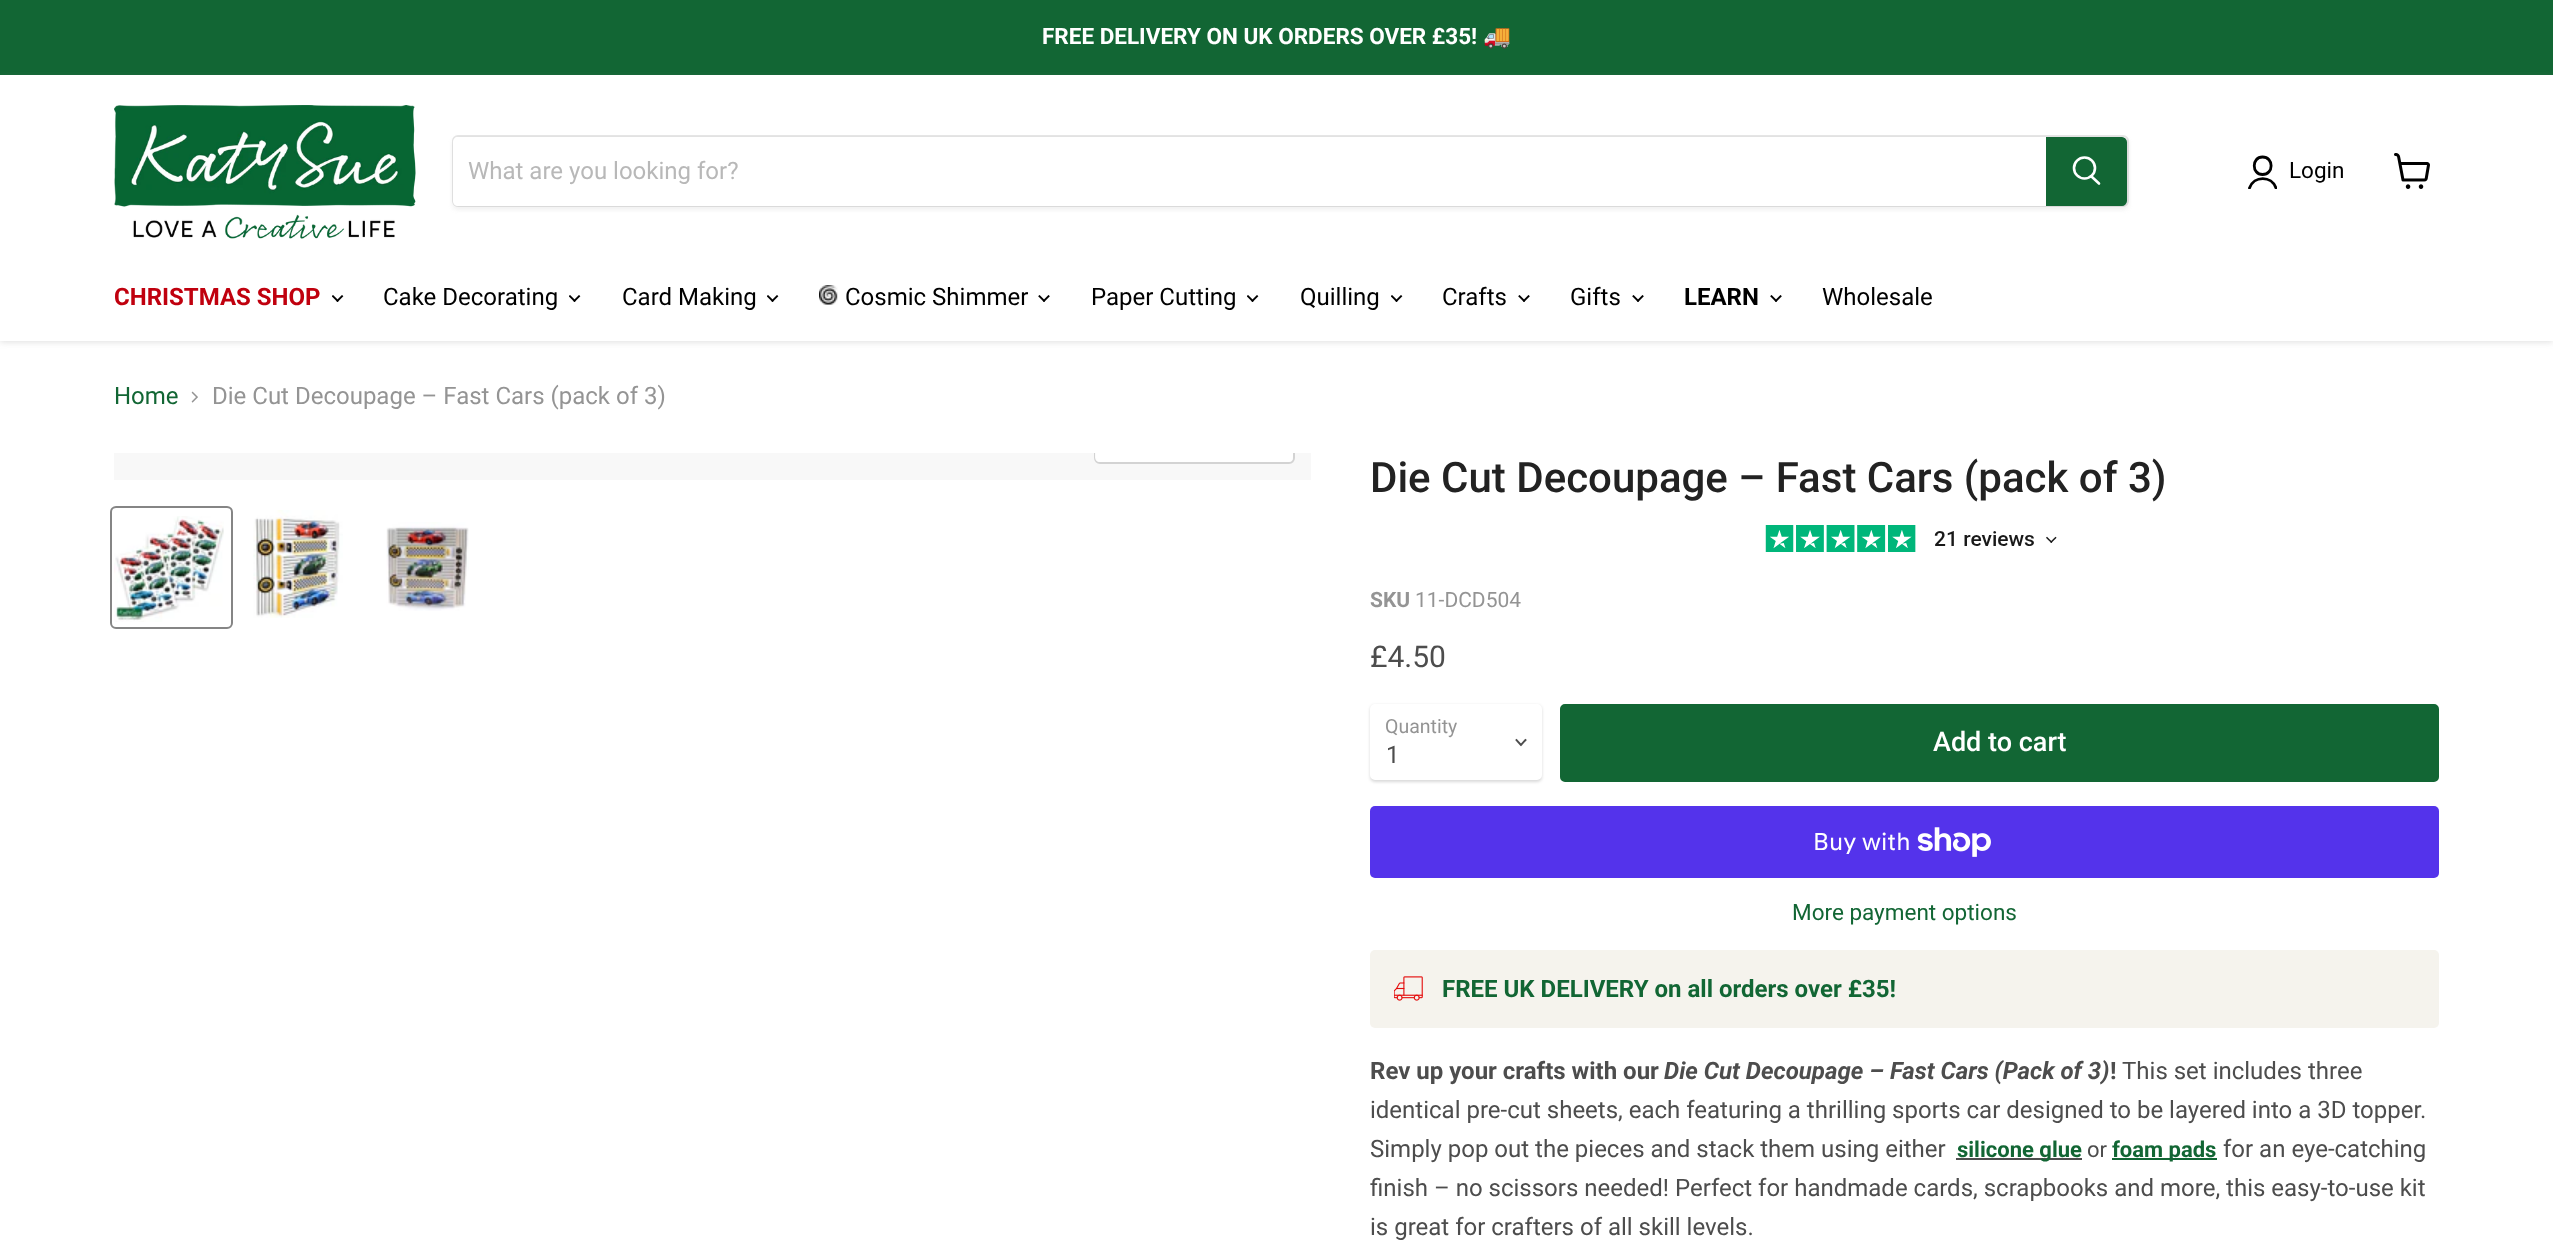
<svg xmlns="http://www.w3.org/2000/svg" width="2553" height="1253" viewBox="0 0 2553 1253">
  <defs>
    <clipPath id="clip1"><rect x="2247" y="155" width="30" height="34"/></clipPath>
    <clipPath id="clip2"><rect x="114" y="453" width="1197" height="27"/></clipPath>
  </defs>
  <rect width="100%" height="100%" fill="rgb(255,255,255)"/>
  <rect x="0" y="0" width="2553" height="75" fill="rgb(18,102,52)"/>
  <text x="1042" y="44" font-family="Roboto" font-size="22.5" font-weight="bold" fill="rgb(255,255,255)">FREE DELIVERY ON UK ORDERS OVER £35!</text>
  <text x="1483" y="44" font-family="Noto Color Emoji" font-size="22.5" font-weight="bold" fill="rgb(255,255,255)">🚚</text>
  <rect x="0" y="77" width="2553" height="265" fill="rgba(128,128,128,0.25)" filter="blur(3px)"/>
  <rect x="0" y="75" width="2553" height="266" fill="rgb(255,255,255)"/>
  <image x="114" y="105" width="302" height="134" href="pic1.png"/>
  <rect x="452" y="138" width="1677" height="72" rx="6" fill="rgba(128,128,128,0.11)" filter="blur(2px)"/>
  <rect x="453" y="136" width="1675" height="70" rx="5" fill="none" stroke="rgba(128,128,128,0.2)" stroke-width="2"/>
  <path d="M458 137H2046V206H458C455 206 453 204 453 201V142C453 139 455 137 458 137Z" fill="rgb(255,255,255)"/>
  <text x="468" y="179" font-family="Roboto" font-size="24" fill="rgb(184,184,184)">What are you looking for?</text>
  <path d="M2047 138H2122C2124 138 2126 140 2126 142V201C2126 203 2124 205 2122 205H2047Z" fill="rgb(18,102,52)" stroke="rgb(18,102,52)" stroke-width="2"/>
  <path d="M2099 183.5L2091.5 176.5" fill="none" stroke="rgb(255,255,255)" stroke-width="2.6" stroke-linecap="round"/>
  <circle cx="2084.5" cy="168" r="10.5" fill="none" stroke="rgb(255,255,255)" stroke-width="2.6"/>
  <path d="M2262.5 174.5C2274 174.5 2274 157 2262.5 157C2251.5 157 2251.5 174.5 2262.5 174.5Z" fill="none" stroke="rgb(0,0,0)" stroke-width="2.8" stroke-linecap="round" stroke-linejoin="round"/>
  <g clip-path="url(#clip1)">
    <path d="M2276 188C2271.5 175.5 2254 175.5 2249.5 188" fill="none" stroke="rgb(0,0,0)" stroke-width="2.8" stroke-linecap="round" stroke-linejoin="round"/>
  </g>
  <text x="2289" y="178" font-family="Roboto" font-size="22.5" fill="rgb(0,0,0)">Login</text>
  <image x="2394" y="153" width="36" height="36" href="pic2.png"/>
  <text x="114" y="305" font-family="Roboto" font-size="24" font-weight="bold" fill="rgb(192,0,14)">CHRISTMAS SHOP</text>
  <image x="332" y="295" width="12" height="7" href="pic3.png"/>
  <text x="383" y="305" font-family="Roboto" font-size="24" fill="rgb(0,0,0)">Cake Decorating</text>
  <image x="569" y="295" width="12" height="7" href="pic3.png"/>
  <text x="622" y="305" font-family="Roboto" font-size="24" fill="rgb(0,0,0)">Card Making</text>
  <image x="767" y="295" width="12" height="7" href="pic3.png"/>
  <image x="819" y="285" width="19" height="20" href="pic4.png"/>
  <text x="845" y="305" font-family="Roboto" font-size="24" fill="rgb(0,0,0)">Cosmic Shimmer</text>
  <image x="1038" y="295" width="12" height="7" href="pic5.png"/>
  <text x="1091" y="305" font-family="Roboto" font-size="24" fill="rgb(0,0,0)">Paper Cutting</text>
  <image x="1247" y="295" width="12" height="7" href="pic3.png"/>
  <text x="1300" y="305" font-family="Roboto" font-size="24" fill="rgb(0,0,0)">Quilling</text>
  <image x="1391" y="295" width="12" height="7" href="pic3.png"/>
  <text x="1442" y="305" font-family="Roboto" font-size="24" fill="rgb(0,0,0)">Crafts</text>
  <image x="1518" y="295" width="12" height="7" href="pic5.png"/>
  <text x="1570" y="305" font-family="Roboto" font-size="24" fill="rgb(0,0,0)">Gifts</text>
  <image x="1632" y="295" width="12" height="7" href="pic5.png"/>
  <text x="1684" y="305" font-family="Roboto" font-size="24" font-weight="bold" fill="rgb(0,0,0)">LEARN</text>
  <image x="1770" y="295" width="12" height="7" href="pic5.png"/>
  <text x="1822" y="305" font-family="Roboto" font-size="24" fill="rgb(0,0,0)">Wholesale</text>
  <text x="114" y="404" font-family="Roboto" font-size="24" fill="rgb(18,102,52)">Home</text>
  <image x="191" y="391" width="7" height="12" href="pic6.png"/>
  <text x="212" y="404" font-family="Roboto" font-size="24" fill="rgb(148,148,148)">Die Cut Decoupage – Fast Cars (pack of 3)</text>
  <rect x="114" y="453" width="1197" height="27" fill="rgb(248,248,248)"/>
  <g clip-path="url(#clip2)">
    <rect x="1095" y="420" width="199" height="43" rx="5" fill="none" stroke="rgb(211,211,211)" stroke-width="2"/>
  </g>
  <path d="M1095 453H1293V457C1293 460 1291 462 1288 462H1100C1097 462 1095 460 1095 457Z" fill="rgba(255,255,255,0.9)"/>
  <rect x="111" y="507" width="121" height="121" rx="5" fill="none" stroke="rgb(133,133,133)" stroke-width="2"/>
  <image x="114" y="516" width="110" height="106" href="pic7.png"/>
  <image x="253" y="510" width="90" height="108" href="pic8.png"/>
  <image x="386" y="522" width="83" height="89" href="pic9.png"/>
  <text x="1370" y="492" font-family="Roboto" font-size="42" font-weight="500" fill="rgb(34,34,34)">Die Cut Decoupage – Fast Cars (pack of 3)</text>
  <image x="1765" y="525" width="292" height="27" href="pic10.png"/>
  <text x="1370" y="607" font-family="Roboto" font-size="21" font-weight="bold" fill="rgb(148,148,148)">SKU</text>
  <text x="1415" y="607" font-family="Roboto" font-size="21" fill="rgb(148,148,148)">11-DCD504</text>
  <text x="1370" y="667" font-family="Roboto" font-size="30" fill="rgb(77,77,77)">£4.50</text>
  <rect x="1370" y="705" width="172" height="77" rx="5" fill="rgba(0,0,0,0.15)" filter="blur(1.5px)"/>
  <rect x="1371" y="705" width="170" height="74" rx="4" fill="rgb(255,255,255)" stroke="rgb(255,255,255)" stroke-width="2"/>
  <text x="1385" y="733" font-family="Roboto" font-size="19.5" fill="rgb(148,148,148)">Quantity</text>
  <path d="M1521 745L1525.5 740M1521 745L1516.5 740" fill="none" stroke="rgb(77,77,77)" stroke-width="1.9" stroke-linecap="square"/>
  <text x="1386" y="763" font-family="Roboto" font-size="24" fill="rgb(77,77,77)">1</text>
  <rect x="1561" y="705" width="877" height="76" rx="4" fill="rgb(18,102,52)" stroke="rgb(18,102,52)" stroke-width="2"/>
  <text x="1933" y="751" font-family="Roboto" font-size="27" font-weight="500" fill="rgb(255,255,255)">Add to cart</text>
  <rect x="1370" y="806" width="1069" height="72" rx="5" fill="rgb(84,51,235)"/>
  <text x="1813" y="850" font-family="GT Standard" font-size="24" fill="rgb(255,255,255)">Buy with</text>
  <image x="1917" y="827" width="74" height="30" href="pic11.png"/>
  <text x="1792" y="920" font-family="Roboto" font-size="22.5" fill="rgb(18,102,52)">More payment options</text>
  <rect x="1370" y="950" width="1069" height="78" rx="5" fill="rgb(245,243,237)"/>
  <image x="1394" y="976" width="29" height="25" href="pic12.png"/>
  <text x="1442" y="997" font-family="Roboto" font-size="24" font-weight="bold" fill="rgb(18,102,52)">FREE UK DELIVERY on all orders over £35!</text>
  <text x="1370" y="1079" font-family="Roboto" font-size="24" font-weight="bold" fill="rgb(77,77,77)">Rev up your crafts with our</text>
  <text x="1664" y="1079" font-family="Roboto" font-size="24" font-weight="bold" font-style="italic" fill="rgb(77,77,77)">Die Cut Decoupage – Fast Cars (Pack of 3)</text>
  <text x="2110" y="1079" font-family="Roboto" font-size="24" font-weight="bold" fill="rgb(77,77,77)">!</text>
  <g font-family="Roboto" font-size="24" fill="rgb(77,77,77)">
    <text x="2122" y="1079">This set includes three</text>
    <text>
      <tspan x="1370" y="1118">identical pre-cut sheets, each featuring a thrilling sports car designed to be layered into a 3D topper.</tspan>
      <tspan x="1370" y="1157">Simply pop out the pieces and stack them using either</tspan>
    </text>
  </g>
  <rect x="1956" y="1158" width="126" height="2" fill="rgb(77,77,77)"/>
  <text x="1957" y="1157" font-family="Roboto" font-size="22" font-weight="bold" fill="rgb(18,102,52)">silicone glue</text>
  <text x="2087" y="1157" font-family="Roboto" font-size="22" fill="rgb(77,77,77)">or</text>
  <rect x="2112" y="1158" width="105" height="2" fill="rgb(18,102,52)"/>
  <text x="2112" y="1157" font-family="Roboto" font-size="22" font-weight="bold" fill="rgb(18,102,52)">foam pads</text>
  <g font-family="Roboto" font-size="24" fill="rgb(77,77,77)">
    <text x="2223" y="1157">for an eye-catching</text>
    <text>
      <tspan x="1370" y="1196">finish – no scissors needed! Perfect for handmade cards, scrapbooks and more, this easy-to-use kit</tspan>
      <tspan x="1370" y="1235">is great for crafters of all skill levels.</tspan>
    </text>
  </g>
</svg>
